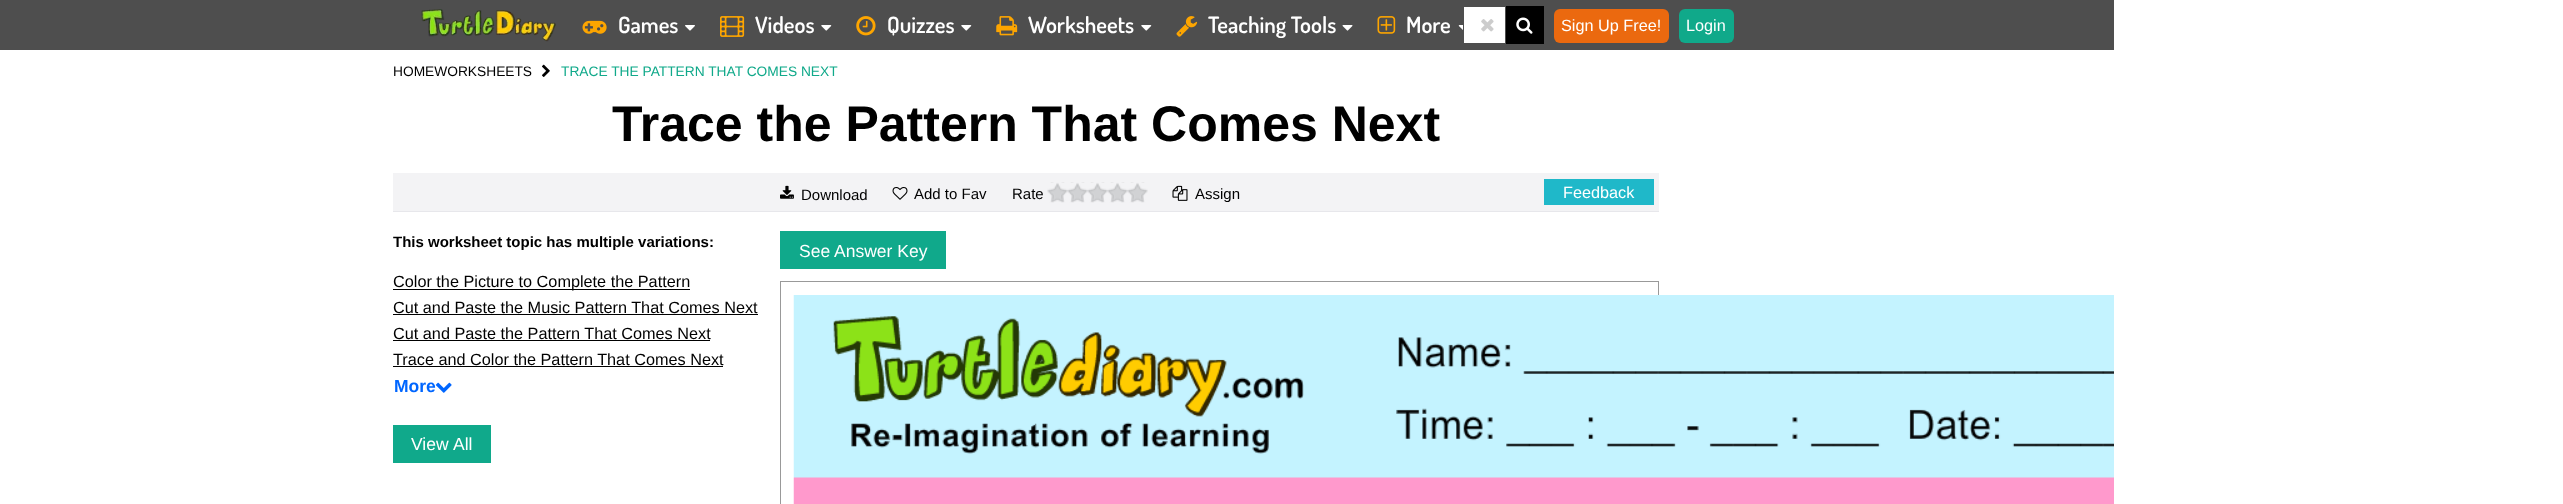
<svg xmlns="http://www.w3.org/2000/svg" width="2563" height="504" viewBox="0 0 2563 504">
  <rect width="100%" height="100%" fill="rgb(255,255,255)"/>
  <rect x="0" y="0" width="2114" height="50" fill="rgb(78,78,78)"/>
  <image x="421" y="9" width="135" height="33" href="pic1.png"/>
  <image x="582" y="20" width="25" height="14" href="pic2.png"/>
  <text x="618" y="33" font-family="Dosis" font-size="22.5" font-weight="600" fill="rgb(255,255,255)">Games</text>
  <image x="685" y="25" width="10" height="6" href="pic3.png"/>
  <image x="720" y="16" width="25" height="21" href="pic4.png"/>
  <text x="755" y="33" font-family="Dosis" font-size="22.5" font-weight="600" fill="rgb(255,255,255)">Videos</text>
  <image x="821" y="25" width="11" height="6" href="pic5.png"/>
  <image x="856" y="16" width="20" height="20" href="pic6.png"/>
  <text x="887" y="33" font-family="Dosis" font-size="22.5" font-weight="600" fill="rgb(255,255,255)">Quizzes</text>
  <image x="961" y="25" width="11" height="6" href="pic5.png"/>
  <image x="996" y="16" width="22" height="20" href="pic7.png"/>
  <text x="1028" y="33" font-family="Dosis" font-size="22.5" font-weight="600" fill="rgb(255,255,255)">Worksheets</text>
  <image x="1141" y="25" width="11" height="6" href="pic5.png"/>
  <image x="1176" y="16" width="22" height="21" href="pic8.png"/>
  <text x="1208" y="33" font-family="Dosis" font-size="22.5" font-weight="600" fill="rgb(255,255,255)">Teaching Tools</text>
  <image x="1342" y="25" width="11" height="6" href="pic9.png"/>
  <image x="1377" y="16" width="19" height="18" href="pic10.png"/>
  <text x="1406" y="33" font-family="Dosis" font-size="22.5" font-weight="600" fill="rgb(255,255,255)">More</text>
  <image x="1458" y="25" width="5" height="5" href="pic11.png"/>
  <rect x="1464" y="7" width="41" height="36" fill="rgb(255,255,255)"/>
  <image x="1481" y="19" width="13" height="13" href="pic12.png"/>
  <rect x="1506" y="6" width="38" height="38" fill="rgb(0,0,0)"/>
  <image x="1516" y="17" width="17" height="17" href="pic13.png"/>
  <rect x="1554" y="9" width="115" height="34" rx="6" fill="rgb(235,105,15)"/>
  <text x="1561" y="31" font-family="Liberation Sans" font-size="16.25" fill="rgb(255,255,255)">Sign Up Free!</text>
  <rect x="1679" y="9" width="55" height="34" rx="6" fill="rgb(16,169,138)"/>
  <text x="1686" y="31" font-family="Liberation Sans" font-size="16.25" fill="rgb(255,255,255)">Login</text>
  <text x="393" y="76" font-family="Liberation Sans" font-size="13.75" fill="rgb(0,0,0)">HOMEWORKSHEETS</text>
  <image x="542" y="64" width="8" height="13" href="pic14.png"/>
  <text x="561" y="76" font-family="Liberation Sans" font-size="13.75" fill="rgb(16,169,138)">TRACE THE PATTERN THAT COMES NEXT</text>
  <text x="612" y="141" font-family="Liberation Sans" font-size="50" font-weight="bold" fill="rgb(0,0,0)">Trace the Pattern That Comes Next</text>
  <rect x="393" y="173" width="1266" height="38" fill="rgb(243,243,245)"/>
  <image x="780" y="185" width="14" height="14" href="pic15.png"/>
  <text x="801" y="200" font-family="Liberation Sans" font-size="15" fill="rgb(0,0,0)">Download</text>
  <image x="892" y="187" width="16" height="13" href="pic16.png"/>
  <g font-family="Liberation Sans" font-size="15" fill="rgb(0,0,0)">
    <text x="914" y="199">Add to Fav</text>
    <text x="1012" y="199">Rate</text>
  </g>
  <image x="1047" y="182" width="101" height="21" href="pic17.png"/>
  <image x="1172" y="185" width="16" height="16" href="pic18.png"/>
  <text x="1195" y="199" font-family="Liberation Sans" font-size="15" fill="rgb(0,0,0)">Assign</text>
  <rect x="1544" y="179" width="110" height="26" fill="rgb(31,184,201)"/>
  <text x="1563" y="198" font-family="Liberation Sans" font-size="16.25" fill="rgb(255,255,255)">Feedback</text>
  <rect x="393" y="211" width="1266" height="1" fill="rgb(231,231,235)"/>
  <text x="393" y="247" font-family="Liberation Sans" font-size="15" font-weight="bold" fill="rgb(0,0,0)">This worksheet topic has multiple variations:</text>
  <rect x="393" y="289" width="297" height="1" fill="rgb(0,0,0)"/>
  <g font-family="Liberation Sans" font-size="16.25" fill="rgb(0,0,0)">
    <text>
      <tspan x="393" y="287">Color the Picture to Complete the Pattern</tspan>
      <tspan x="393" y="313">Cut and Paste the Music Pattern That Comes Next</tspan>
    </text>
  </g>
  <rect x="393" y="314" width="365" height="1" fill="rgb(0,0,0)"/>
  <text x="393" y="339" font-family="Liberation Sans" font-size="16.25" fill="rgb(0,0,0)">Cut and Paste the Pattern That Comes Next</text>
  <rect x="393" y="340" width="317" height="1" fill="rgb(0,0,0)"/>
  <text x="393" y="365" font-family="Liberation Sans" font-size="16.25" fill="rgb(0,0,0)">Trace and Color the Pattern That Comes Next</text>
  <rect x="393" y="366" width="330" height="1" fill="rgb(0,0,0)"/>
  <text x="394" y="392" font-family="Liberation Sans" font-size="17.5" font-weight="bold" fill="rgb(0,102,255)">More</text>
  <image x="435" y="382" width="17" height="11" href="pic19.png"/>
  <rect x="393" y="425" width="98" height="38" fill="rgb(16,169,139)"/>
  <g font-family="Liberation Sans" font-size="17.5" fill="rgb(255,255,255)">
    <text x="411" y="450">View</text>
    <text x="453" y="450">All</text>
  </g>
  <rect x="780" y="231" width="166" height="38" fill="rgb(16,169,139)"/>
  <text x="799" y="257" font-family="Liberation Sans" font-size="17.5" fill="rgb(255,255,255)">See Answer Key</text>
  <rect x="780.5" y="281.5" width="878" height="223" fill="none" stroke="rgb(153,153,153)"/>
  <image x="793" y="295" width="1321" height="209" href="pic20.png"/>
</svg>
